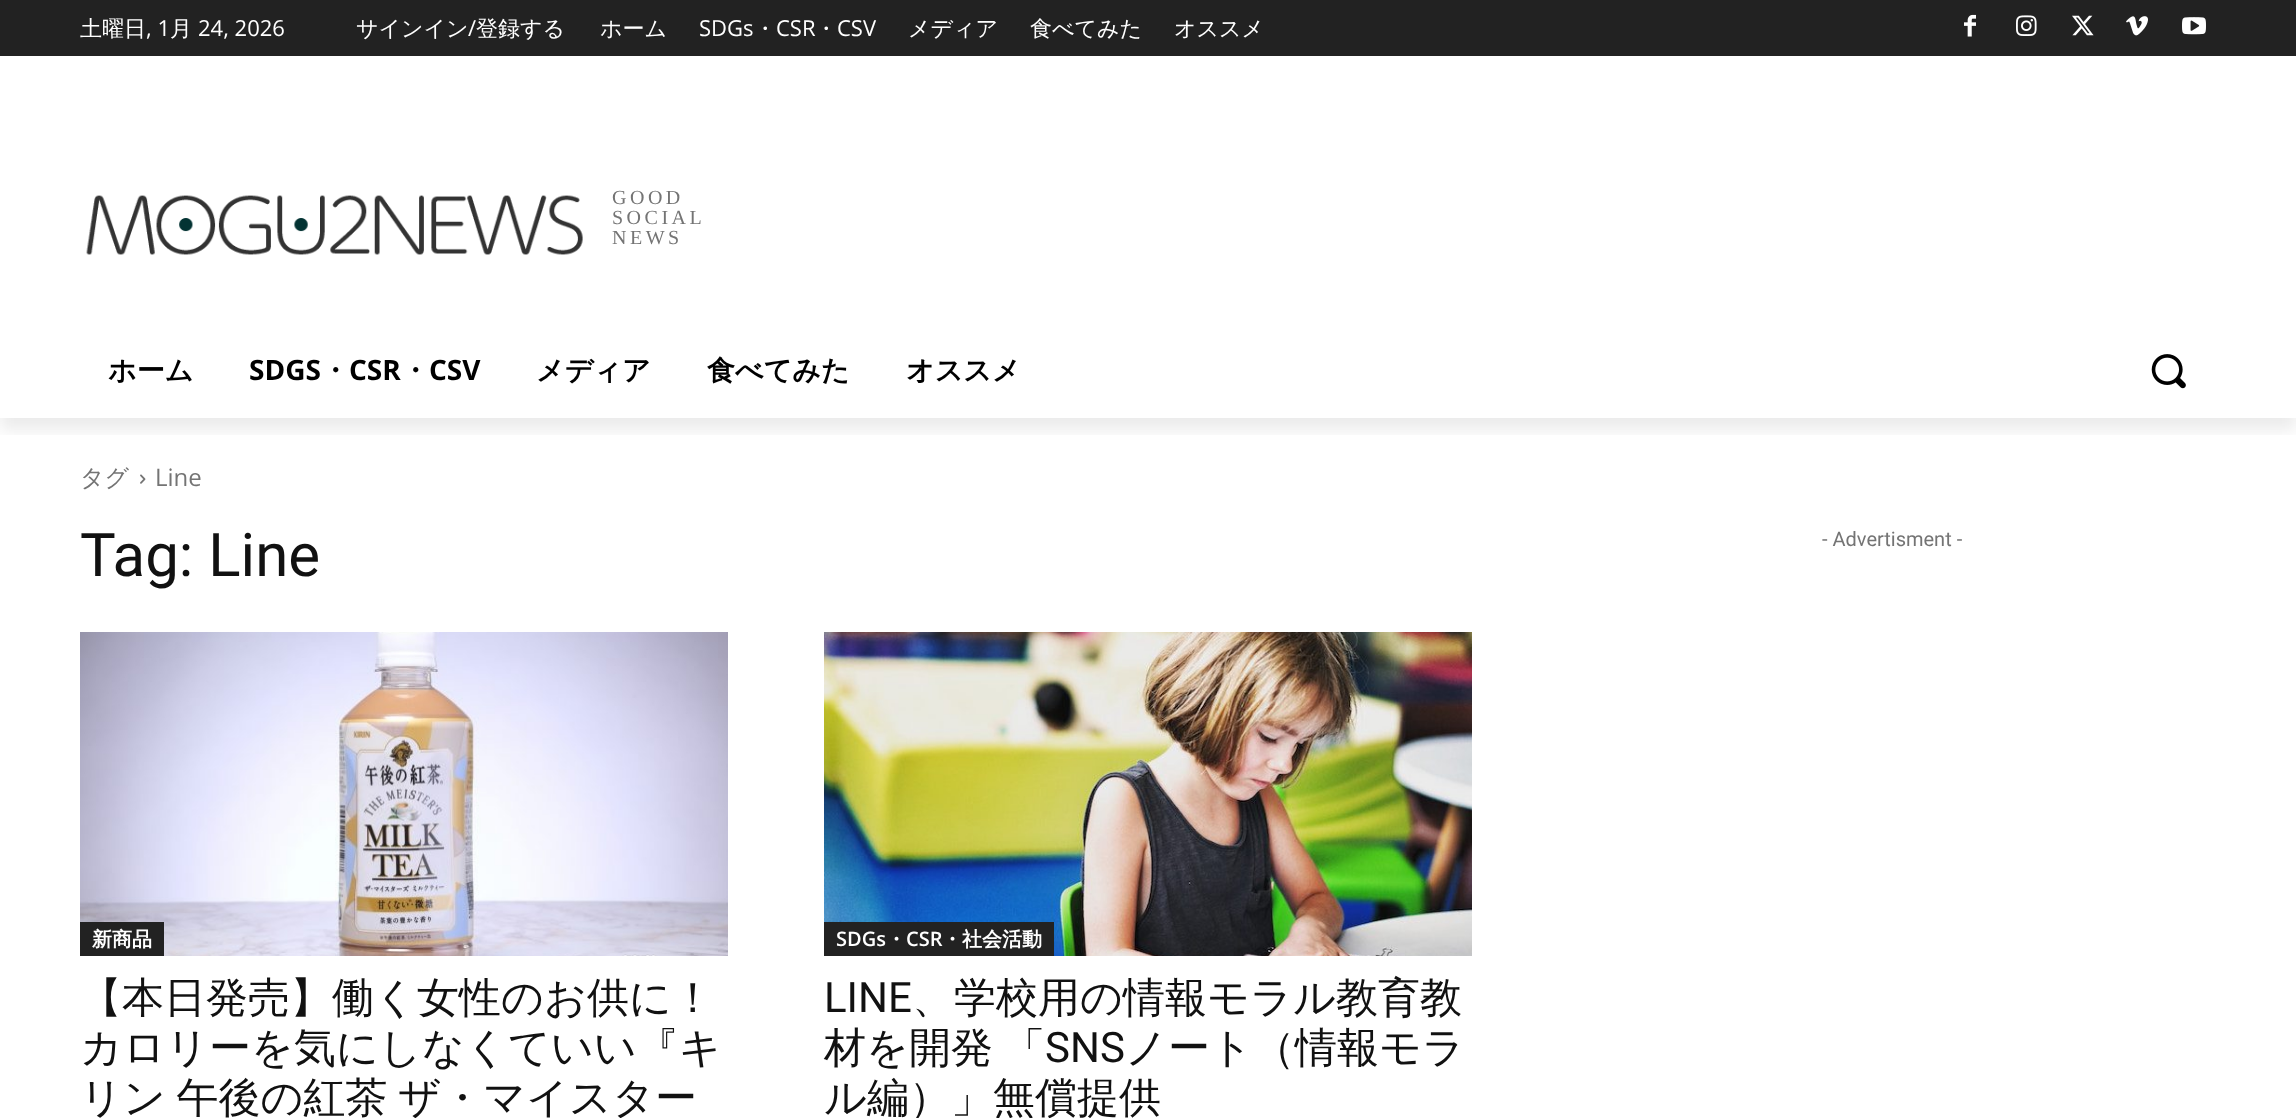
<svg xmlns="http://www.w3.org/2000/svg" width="2296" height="1118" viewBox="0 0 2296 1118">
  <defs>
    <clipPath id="clip1"><rect x="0" y="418" width="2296" height="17"/></clipPath>
  </defs>
  <rect width="100%" height="100%" fill="rgb(255,255,255)"/>
  <rect x="0" y="0" width="2296" height="56" fill="rgb(34,34,34)"/>
  <image x="1964" y="14" width="12" height="23" href="pic1.png"/>
  <image x="2016" y="15" width="21" height="21" href="pic2.png"/>
  <image x="2072" y="15" width="22" height="21" href="pic3.png"/>
  <image x="2126" y="16" width="22" height="20" href="pic4.png"/>
  <image x="2182" y="17" width="24" height="18" href="pic5.png"/>
  <image x="86" y="195" width="497" height="60" href="pic6.png"/>
  <g clip-path="url(#clip1)">
    <rect x="0" y="12" width="2296" height="418" fill="rgba(0,0,0,0.08)" filter="blur(8px)"/>
  </g>
  <text x="80" y="36" font-family="WenQuanYi Zen Hei" font-size="22" font-weight="500" fill="rgb(255,255,255)">土曜日</text>
  <text x="146" y="36" font-family="Open Sans" font-size="22" fill="rgb(255,255,255)">, 1</text>
  <text x="170" y="36" font-family="WenQuanYi Zen Hei" font-size="22" font-weight="500" fill="rgb(255,255,255)">月</text>
  <text x="198" y="36" font-family="Open Sans" font-size="22" fill="rgb(255,255,255)">24, 2026</text>
  <text x="356" y="36" font-family="WenQuanYi Zen Hei" font-size="22" font-weight="500" fill="rgb(255,255,255)">サインイン</text>
  <text x="468" y="36" font-family="Open Sans" font-size="22" fill="rgb(255,255,255)">/</text>
  <g font-family="WenQuanYi Zen Hei" font-size="22" font-weight="500" fill="rgb(255,255,255)">
    <text x="476" y="36">登録する</text>
    <text x="600" y="36">ホーム</text>
  </g>
  <text x="699" y="36" font-family="Open Sans" font-size="22" fill="rgb(255,255,255)">SDGs</text>
  <text x="754" y="36" font-family="WenQuanYi Zen Hei" font-size="22" font-weight="500" fill="rgb(255,255,255)">・</text>
  <text x="776" y="36" font-family="Open Sans" font-size="22" fill="rgb(255,255,255)">CSR</text>
  <text x="815" y="36" font-family="WenQuanYi Zen Hei" font-size="22" font-weight="500" fill="rgb(255,255,255)">・</text>
  <text x="837" y="36" font-family="Open Sans" font-size="22" fill="rgb(255,255,255)">CSV</text>
  <g font-family="WenQuanYi Zen Hei" font-size="22" font-weight="500" fill="rgb(255,255,255)">
    <text x="908" y="36">メディア</text>
    <text x="1030" y="36">食べてみた</text>
    <text x="1174" y="36">オススメ</text>
  </g>
  <g font-family="Liberation Serif" font-size="20" letter-spacing="3.5" fill="rgb(116,116,116)">
    <text>
      <tspan x="612" y="204">GOOD</tspan>
      <tspan x="612" y="224">SOCIAL</tspan>
      <tspan x="612" y="244">NEWS</tspan>
    </text>
  </g>
  <text x="108" y="380" font-family="WenQuanYi Zen Hei" font-size="28" font-weight="bold" fill="rgb(0,0,0)">ホーム</text>
  <text x="249" y="380" font-family="Open Sans" font-size="28" font-weight="bold" fill="rgb(0,0,0)">SDGS</text>
  <text x="321" y="380" font-family="WenQuanYi Zen Hei" font-size="28" font-weight="bold" fill="rgb(0,0,0)">・</text>
  <text x="349" y="380" font-family="Open Sans" font-size="28" font-weight="bold" fill="rgb(0,0,0)">CSR</text>
  <text x="401" y="380" font-family="WenQuanYi Zen Hei" font-size="28" font-weight="bold" fill="rgb(0,0,0)">・</text>
  <text x="429" y="380" font-family="Open Sans" font-size="28" font-weight="bold" fill="rgb(0,0,0)">CSV</text>
  <g font-family="WenQuanYi Zen Hei" font-size="28" font-weight="bold" fill="rgb(0,0,0)">
    <text x="536" y="380">メディア</text>
    <text x="707" y="380">食べてみた</text>
    <text x="906" y="380">オススメ</text>
  </g>
  <image x="2151" y="354" width="35" height="35" href="pic7.png"/>
  <text x="80" y="486" font-family="WenQuanYi Zen Hei" font-size="24" font-weight="500" fill="rgb(116,116,116)">タグ</text>
  <image x="140" y="474" width="6" height="10" href="pic8.png"/>
  <text x="155" y="486" font-family="Open Sans" font-size="24" fill="rgb(116,116,116)">Line</text>
  <text x="80" y="576" font-family="Roboto" font-size="60" fill="rgb(17,17,17)">Tag: Line</text>
  <image x="80" y="632" width="648" height="324" href="pic9.png"/>
  <rect x="80" y="922" width="84" height="34" fill="rgb(34,34,34)"/>
  <text x="92" y="946" font-family="WenQuanYi Zen Hei" font-size="20" font-weight="bold" fill="rgb(255,255,255)">新商品</text>
  <g font-family="WenQuanYi Zen Hei" font-size="42" font-weight="500" fill="rgb(17,17,17)">
    <text>
      <tspan x="80" y="1012">【本日発売】働く女性のお供に！</tspan>
      <tspan x="80" y="1062">カロリーを気にしなくていい『キ</tspan>
      <tspan x="80" y="1112" word-spacing="-2">リン 午後の紅茶 ザ・マイスター</tspan>
    </text>
  </g>
  <image x="824" y="632" width="648" height="324" href="pic10.png"/>
  <rect x="824" y="922" width="230" height="34" fill="rgb(34,34,34)"/>
  <text x="836" y="946" font-family="Open Sans" font-size="20" font-weight="600" fill="rgb(255,255,255)">SDGs</text>
  <text x="886" y="946" font-family="WenQuanYi Zen Hei" font-size="20" font-weight="bold" fill="rgb(255,255,255)">・</text>
  <text x="906" y="946" font-family="Open Sans" font-size="20" font-weight="600" fill="rgb(255,255,255)">CSR</text>
  <text x="942" y="946" font-family="WenQuanYi Zen Hei" font-size="20" font-weight="bold" fill="rgb(255,255,255)">・社会活動</text>
  <text x="824" y="1012" font-family="Roboto" font-size="42" fill="rgb(17,17,17)">LINE</text>
  <g font-family="WenQuanYi Zen Hei" font-size="42" font-weight="500" fill="rgb(17,17,17)">
    <text x="912" y="1012">、学校用の情報モラル教育教</text>
    <text x="824" y="1062" word-spacing="-2">材を開発 「</text>
  </g>
  <text x="1045" y="1062" font-family="Roboto" font-size="42" fill="rgb(17,17,17)">SNS</text>
  <g font-family="WenQuanYi Zen Hei" font-size="42" font-weight="500" fill="rgb(17,17,17)">
    <text x="1125" y="1062">ノート（情報モラ</text>
    <text x="824" y="1112">ル編）」無償提供</text>
  </g>
  <text x="1822" y="546" font-family="Roboto" font-size="20" fill="rgb(116,116,116)">- Advertisment -</text>
</svg>
